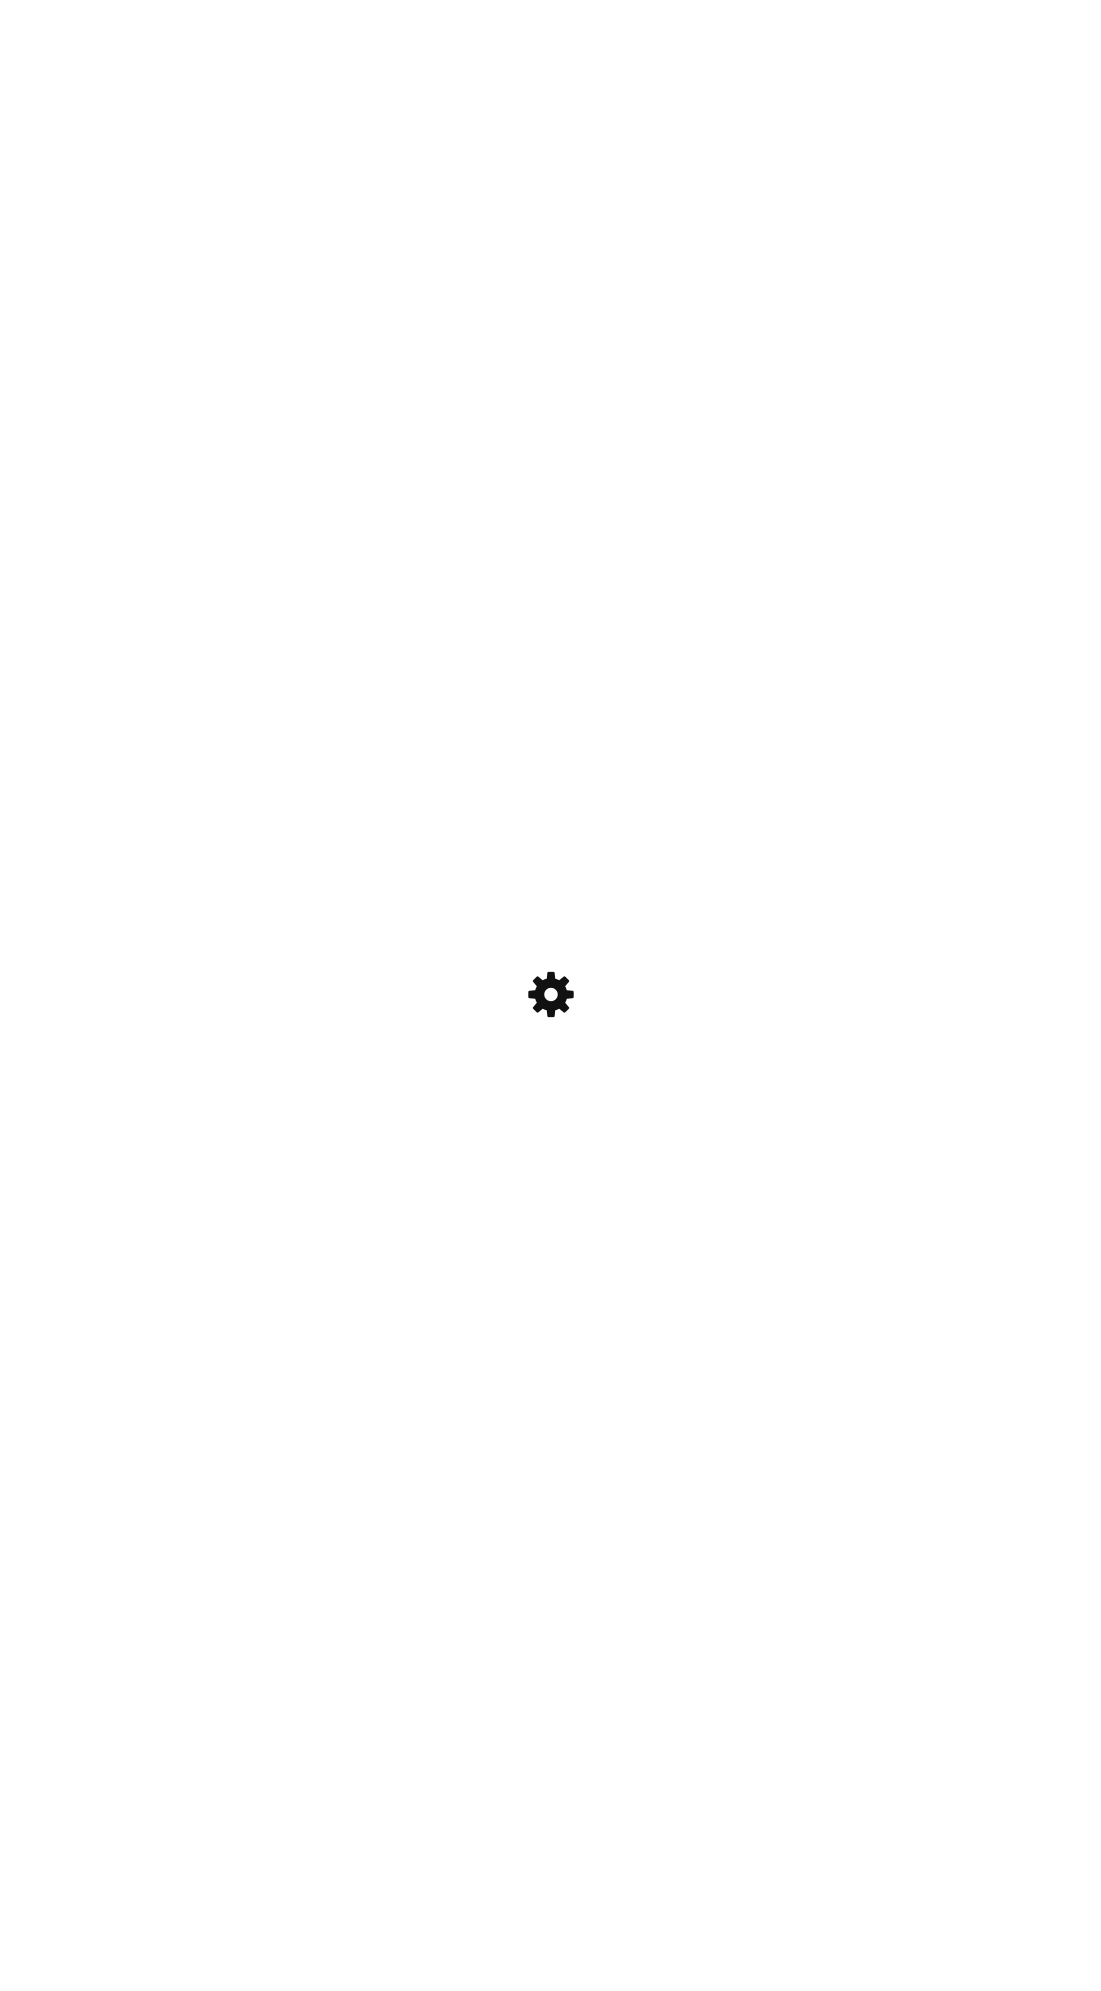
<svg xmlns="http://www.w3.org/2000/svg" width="1101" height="1991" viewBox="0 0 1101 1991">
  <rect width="100%" height="100%" fill="rgb(255,255,255)"/>
  <image x="528" y="971" width="46" height="47" href="pic1.png"/>
</svg>
